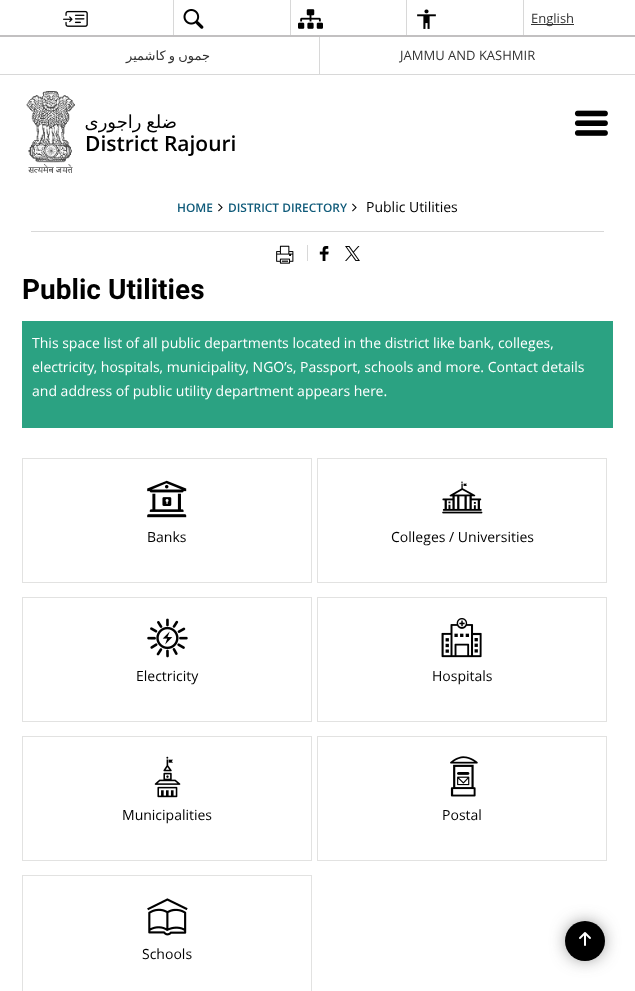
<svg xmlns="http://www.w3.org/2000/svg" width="635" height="991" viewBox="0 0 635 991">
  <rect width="100%" height="100%" fill="rgb(255,255,255)"/>
  <rect x="0" y="74" width="635" height="1" fill="rgb(216,216,216)"/>
  <image x="63" y="10" width="25" height="17" href="pic1.png"/>
  <rect x="173" y="0" width="1" height="37" fill="rgb(216,216,216)"/>
  <image x="183" y="9" width="21" height="20" href="pic2.png"/>
  <rect x="290" y="0" width="1" height="37" fill="rgb(216,216,216)"/>
  <image x="298" y="9" width="25" height="20" href="pic3.png"/>
  <rect x="406" y="0" width="1" height="37" fill="rgb(216,216,216)"/>
  <image x="417" y="9" width="19" height="20" href="pic4.png"/>
  <rect x="523" y="0" width="1" height="37" fill="rgb(216,216,216)"/>
  <rect x="531" y="24" width="43" height="1" fill="rgb(51,51,51)"/>
  <text x="531" y="23" font-family="Open Sans" font-size="13" fill="rgb(51,51,51)">English</text>
  <text x="210" y="60" word-spacing="-1" font-family="DejaVu Sans" font-size="13" direction="rtl" fill="rgb(51,51,51)">جموں و کاشمیر</text>
  <rect x="319" y="37" width="1" height="37" fill="rgb(216,216,216)"/>
  <text x="400" y="60" font-family="Open Sans" font-size="13" fill="rgb(51,51,51)">JAMMU AND KASHMIR</text>
  <rect x="0" y="35" width="635" height="2" fill="rgb(194,192,193)"/>
  <image x="26" y="91" width="49" height="82" href="pic5.png"/>
  <text x="177" y="128" word-spacing="-1" font-family="DejaVu Sans" font-size="18" direction="rtl" fill="rgb(0,0,0)">ضلع راجوری</text>
  <text x="85" y="151" font-family="Open Sans" font-size="21" font-weight="600" fill="rgb(0,0,0)">District Rajouri</text>
  <image x="574" y="110" width="34" height="26" href="pic6.png"/>
  <rect x="31" y="231" width="573" height="1" fill="rgb(216,216,216)"/>
  <text x="177" y="212" font-family="Open Sans" font-size="11.9" font-weight="600" fill="rgb(16,91,122)">HOME</text>
  <image x="218" y="203" width="5" height="9" href="pic7.png"/>
  <text x="228" y="212" font-family="Open Sans" font-size="11.9" font-weight="600" fill="rgb(16,91,122)">DISTRICT DIRECTORY</text>
  <image x="352" y="203" width="5" height="9" href="pic7.png"/>
  <text x="366" y="212" font-family="Open Sans" font-size="14" fill="rgb(0,0,0)">Public Utilities</text>
  <image x="276" y="245" width="18" height="19" href="pic8.png"/>
  <rect x="307" y="245" width="1" height="16" fill="rgb(216,216,216)"/>
  <image x="319" y="246" width="10" height="15" href="pic9.png"/>
  <image x="345" y="246" width="15" height="15" href="pic10.png"/>
  <text x="22" y="299" font-family="Roboto" font-size="28" font-weight="bold" fill="rgb(0,0,0)">Public Utilities</text>
  <rect x="22" y="321" width="591" height="107" fill="rgb(43,162,130)"/>
  <g font-family="Open Sans" font-size="14" fill="rgb(255,255,255)">
    <text>
      <tspan x="32" y="348">This space list of all public departments located in the district like bank, colleges,</tspan>
      <tspan x="32" y="372">electricity, hospitals, municipality, NGO’s, Passport, schools and more. Contact details</tspan>
      <tspan x="32" y="396">and address of public utility department appears here.</tspan>
    </text>
  </g>
  <rect x="22.5" y="458.5" width="289" height="124" fill="none" stroke="rgb(226,226,225)"/>
  <image x="147" y="480" width="40" height="38" href="pic11.png"/>
  <text x="147" y="542" font-family="Open Sans" font-size="14" fill="rgb(0,0,0)">Banks</text>
  <rect x="317.5" y="458.5" width="289" height="124" fill="none" stroke="rgb(226,226,225)"/>
  <image x="442" y="481" width="41" height="33" href="pic12.png"/>
  <text x="391" y="542" font-family="Open Sans" font-size="14" fill="rgb(0,0,0)">Colleges / Universities</text>
  <rect x="22.5" y="597.5" width="289" height="124" fill="none" stroke="rgb(226,226,225)"/>
  <image x="147" y="618" width="41" height="40" href="pic13.png"/>
  <text x="136" y="681" font-family="Open Sans" font-size="14" fill="rgb(0,0,0)">Electricity</text>
  <rect x="317.5" y="597.5" width="289" height="124" fill="none" stroke="rgb(226,226,225)"/>
  <image x="441" y="618" width="41" height="40" href="pic14.png"/>
  <text x="432" y="681" font-family="Open Sans" font-size="14" fill="rgb(0,0,0)">Hospitals</text>
  <rect x="22.5" y="736.5" width="289" height="124" fill="none" stroke="rgb(226,226,225)"/>
  <image x="154" y="756" width="27" height="42" href="pic15.png"/>
  <text x="122" y="820" font-family="Open Sans" font-size="14" fill="rgb(0,0,0)">Municipalities</text>
  <rect x="317.5" y="736.5" width="289" height="124" fill="none" stroke="rgb(226,226,225)"/>
  <image x="450" y="756" width="28" height="41" href="pic16.png"/>
  <text x="442" y="820" font-family="Open Sans" font-size="14" fill="rgb(0,0,0)">Postal</text>
  <rect x="22.5" y="875.5" width="289" height="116" fill="none" stroke="rgb(226,226,225)"/>
  <image x="147" y="898" width="41" height="38" href="pic17.png"/>
  <text x="142" y="959" font-family="Open Sans" font-size="14" fill="rgb(0,0,0)">Schools</text>
  <rect x="570" y="926" width="30" height="30" rx="15" fill="rgb(60,60,60)" filter="blur(9.5px)"/>
  <circle cx="585" cy="941" r="20" fill="rgb(0,0,0)"/>
  <image x="579" y="932" width="12" height="14" href="pic18.png"/>
</svg>
